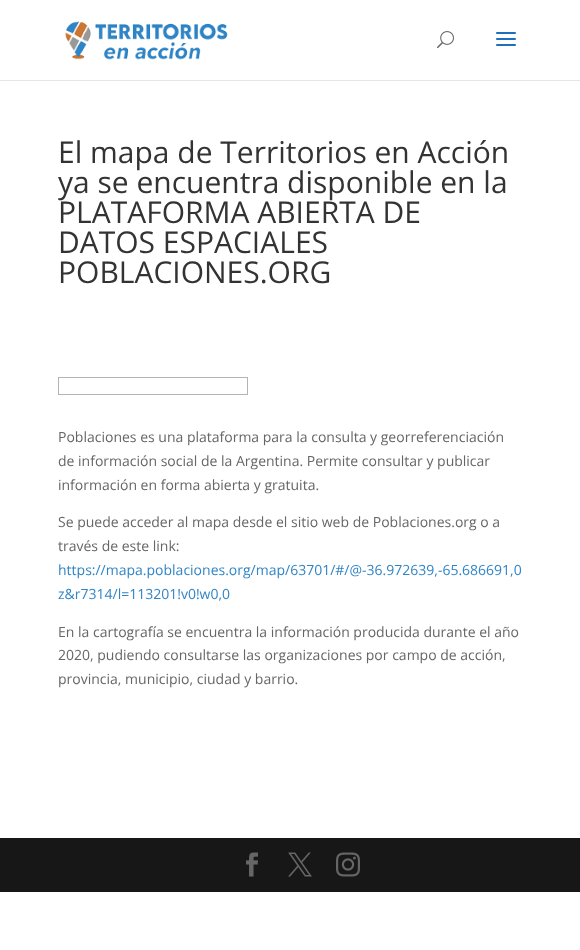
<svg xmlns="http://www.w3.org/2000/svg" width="580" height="950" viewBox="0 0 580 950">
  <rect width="100%" height="100%" fill="rgb(255,255,255)"/>
  <rect x="0" y="80" width="580" height="1" fill="rgb(230,230,230)"/>
  <image x="65" y="21" width="163" height="39" href="pic1.png"/>
  <image x="437" y="31" width="17" height="18" href="pic2.png"/>
  <image x="496" y="32" width="20" height="14" href="pic3.png"/>
  <g font-family="Open Sans" font-size="30" fill="rgb(51,51,51)">
    <text>
      <tspan x="58" y="163">El mapa de Territorios en Acción</tspan>
      <tspan x="58" y="193">ya se encuentra disponible en la</tspan>
      <tspan x="58" y="223">PLATAFORMA ABIERTA DE</tspan>
      <tspan x="58" y="253">DATOS ESPACIALES</tspan>
      <tspan x="58" y="283">POBLACIONES.ORG</tspan>
    </text>
  </g>
  <rect x="58.5" y="377.5" width="189" height="17" fill="none" stroke="rgb(179,179,179)"/>
  <g font-family="Open Sans" font-size="14" fill="rgb(102,102,102)">
    <text>
      <tspan x="58" y="442">Poblaciones es una plataforma para la consulta y georreferenciación</tspan>
      <tspan x="58" y="466">de información social de la Argentina. Permite consultar y publicar</tspan>
      <tspan x="58" y="490">información en forma abierta y gratuita.</tspan>
    </text>
    <text>
      <tspan x="58" y="527">Se puede acceder al mapa desde el sitio web de Poblaciones.org o a</tspan>
      <tspan x="58" y="551">través de este link:</tspan>
    </text>
  </g>
  <g font-family="Open Sans" font-size="14" fill="rgb(49,133,198)">
    <text>
      <tspan x="58" y="575">https://mapa.poblaciones.org/map/63701/#/@-36.972639,-65.686691,0</tspan>
      <tspan x="58" y="599">z&amp;r7314/l=113201!v0!w0,0</tspan>
    </text>
  </g>
  <g font-family="Open Sans" font-size="14" fill="rgb(102,102,102)">
    <text>
      <tspan x="58" y="637">En la cartografía se encuentra la información producida durante el año</tspan>
      <tspan x="58" y="660">2020, pudiendo consultarse las organizaciones por campo de acción,</tspan>
      <tspan x="58" y="684">provincia, municipio, ciudad y barrio.</tspan>
    </text>
  </g>
  <rect x="0" y="838" width="580" height="54" fill="rgb(23,23,23)"/>
  <image x="246" y="852" width="12" height="25" href="pic4.png"/>
  <image x="288" y="852" width="24" height="25" href="pic5.png"/>
  <image x="336" y="852" width="24" height="25" href="pic6.png"/>
</svg>
